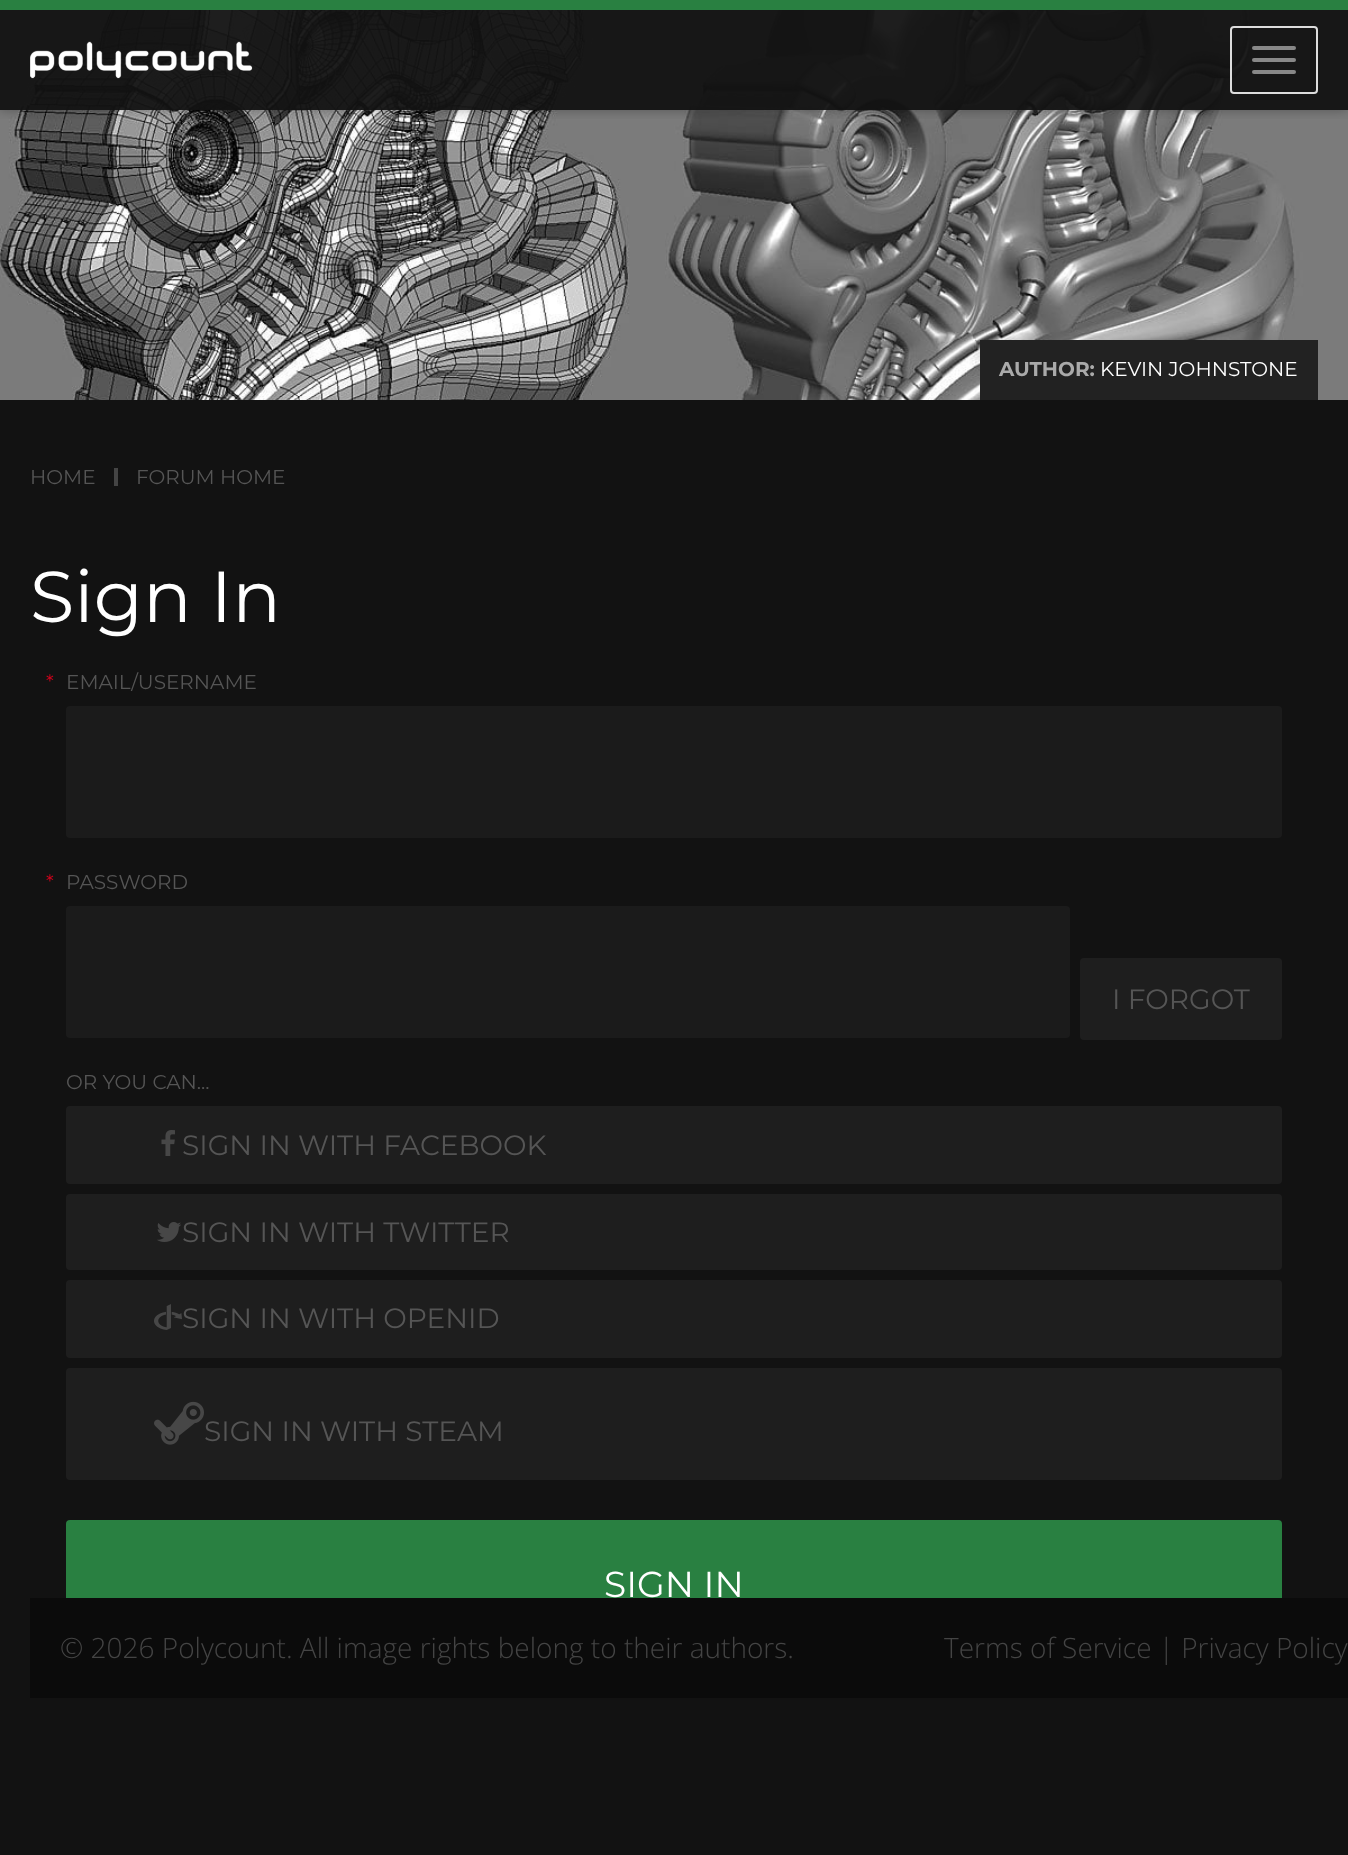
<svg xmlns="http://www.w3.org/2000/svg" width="1348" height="1855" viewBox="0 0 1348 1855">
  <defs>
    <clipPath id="clip1"><rect x="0" y="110" width="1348" height="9"/></clipPath>
  </defs>
  <rect width="100%" height="100%" fill="rgb(18,18,18)"/>
  <image x="0" y="10" width="1348" height="390" href="pic2.png"/>
  <g clip-path="url(#clip1)">
    <rect x="0" y="0" width="1348" height="110" fill="rgba(0,0,0,0.3)" filter="blur(6px)"/>
  </g>
  <rect x="0" y="10" width="1348" height="100" fill="rgba(18,18,18,0.95)"/>
  <rect x="0" y="0" width="1348" height="10" fill="rgb(41,128,65)"/>
  <image x="30" y="41" width="223" height="38" href="pic1.png"/>
  <rect x="1231" y="27" width="86" height="66" rx="3" fill="none" stroke="rgb(221,221,221)" stroke-width="2"/>
  <rect x="1252" y="46" width="44" height="4" rx="2" fill="rgb(136,136,136)"/>
  <rect x="1252" y="58" width="44" height="4" rx="2" fill="rgb(136,136,136)"/>
  <rect x="1252" y="70" width="44" height="4" rx="2" fill="rgb(136,136,136)"/>
  <rect x="980" y="340" width="338" height="60" fill="rgb(34,34,34)"/>
  <text x="999" y="376" font-family="'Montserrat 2'" font-size="20" font-weight="100" fill="rgb(170,170,170)">AUTHOR:</text>
  <text x="1100" y="376" font-family="Montserrat" font-size="20" font-weight="100" fill="rgb(255,255,255)">KEVIN JOHNSTONE</text>
  <text x="30" y="484" font-family="Montserrat" font-size="20" font-weight="100" fill="rgb(85,85,85)">HOME</text>
  <rect x="114" y="468" width="4" height="18" fill="rgb(68,68,68)"/>
  <text x="136" y="484" font-family="Montserrat" font-size="20" font-weight="100" fill="rgb(85,85,85)">FORUM HOME</text>
  <text x="30" y="622" font-family="Montserrat" font-size="72" font-weight="100" fill="rgb(255,255,255)">Sign In</text>
  <text x="46" y="689" font-family="Montserrat" font-size="20" font-weight="100" fill="rgb(208,2,27)">*</text>
  <text x="66" y="689" font-family="Montserrat" font-size="20" font-weight="100" fill="rgb(85,85,85)">EMAIL/USERNAME</text>
  <rect x="66" y="706" width="1216" height="132" rx="4" fill="rgb(27,27,27)"/>
  <text x="46" y="889" font-family="Montserrat" font-size="20" font-weight="100" fill="rgb(208,2,27)">*</text>
  <text x="66" y="889" font-family="Montserrat" font-size="20" font-weight="100" fill="rgb(85,85,85)">PASSWORD</text>
  <rect x="66" y="906" width="1004" height="132" rx="4" fill="rgb(27,27,27)"/>
  <rect x="1080" y="958" width="202" height="82" rx="4" fill="rgb(30,30,30)"/>
  <text x="1112" y="1009" font-family="Montserrat" font-size="28" font-weight="100" fill="rgb(85,85,85)">I FORGOT</text>
  <text x="66" y="1089" font-family="Montserrat" font-size="20" font-weight="100" fill="rgb(85,85,85)">OR YOU CAN...</text>
  <rect x="66" y="1106" width="1216" height="78" rx="4" fill="rgb(30,30,30)"/>
  <image x="161" y="1130" width="14" height="26" href="pic3.png"/>
  <text x="182" y="1155" font-family="Montserrat" font-size="28" font-weight="100" fill="rgb(85,85,85)">SIGN IN WITH FACEBOOK</text>
  <rect x="66" y="1194" width="1216" height="76" rx="4" fill="rgb(30,30,30)"/>
  <image x="157" y="1222" width="24" height="20" href="pic4.png"/>
  <text x="182" y="1242" font-family="Montserrat" font-size="28" font-weight="100" fill="rgb(85,85,85)">SIGN IN WITH TWITTER</text>
  <rect x="66" y="1280" width="1216" height="78" rx="4" fill="rgb(30,30,30)"/>
  <image x="154" y="1304" width="28" height="26" href="pic5.png"/>
  <text x="182" y="1328" font-family="Montserrat" font-size="28" font-weight="100" fill="rgb(85,85,85)">SIGN IN WITH OPENID</text>
  <rect x="66" y="1368" width="1216" height="112" rx="4" fill="rgb(30,30,30)"/>
  <image x="154" y="1401" width="50" height="44" href="pic6.png"/>
  <text x="204" y="1441" font-family="Montserrat" font-size="28" font-weight="100" fill="rgb(85,85,85)">SIGN IN WITH STEAM</text>
  <rect x="66" y="1520" width="1216" height="132" rx="4" fill="rgb(41,128,65)"/>
  <text x="604" y="1597" font-family="Montserrat" font-size="36" font-weight="100" fill="rgb(255,255,255)">SIGN IN</text>
  <rect x="30" y="1598" width="1318" height="100" fill="rgb(11,11,11)"/>
  <g font-family="Open Sans" font-size="28" font-weight="300" fill="rgb(68,68,68)">
    <text x="60" y="1658">© 2026 Polycount. All image rights belong to their authors.</text>
    <text x="944" y="1658">Terms of Service | Privacy Policy</text>
  </g>
</svg>
